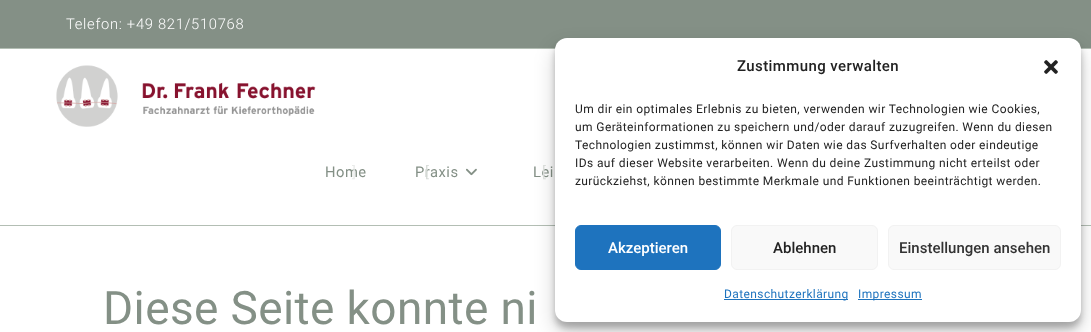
<svg xmlns="http://www.w3.org/2000/svg" width="1091" height="332" viewBox="0 0 1091 332">
  <rect width="100%" height="100%" fill="rgb(255,255,255)"/>
  <rect x="0" y="0" width="1091" height="48" fill="rgb(132,144,134)"/>
  <rect x="0" y="48" width="1091" height="1" fill="rgb(179,190,180)"/>
  <text x="66" y="29" font-family="Roboto" font-size="14.75" font-weight="300" letter-spacing="0.7" fill="rgb(255,255,255)">Telefon: +49 821/510768</text>
  <rect x="0" y="225" width="1091" height="1" fill="rgb(179,190,180)"/>
  <image x="56" y="65" width="260" height="62" href="pic1.png"/>
  <text x="325" y="177" font-family="Roboto" font-size="14.75" letter-spacing="0.5" fill="rgb(132,144,134)">Home</text>
  <text x="352" y="177" font-family="Roboto" font-size="14.75" letter-spacing="0.5" fill="rgb(233,235,233)">]</text>
  <text x="415" y="177" font-family="Roboto" font-size="14.75" letter-spacing="0.5" fill="rgb(132,144,134)">Praxis</text>
  <text x="425" y="177" font-family="Roboto" font-size="14.75" letter-spacing="0.5" fill="rgb(216,220,217)">[</text>
  <image x="466" y="168" width="11" height="8" href="pic2.png"/>
  <text x="533" y="177" font-family="Roboto" font-size="14.75" letter-spacing="0.5" fill="rgb(132,144,134)">Lei</text>
  <text x="542" y="177" font-family="Roboto" font-size="14.75" letter-spacing="0.5" fill="rgb(224,227,224)">[</text>
  <text x="103" y="324" font-family="Roboto" font-size="46" letter-spacing="0.4" fill="rgb(132,144,134)">Diese Seite konnte ni</text>
  <rect x="555" y="44" width="526" height="284" rx="12" fill="rgba(0,0,0,0.23)" filter="blur(3px)"/>
  <rect x="555" y="48" width="526" height="284" rx="12" fill="rgba(0,0,0,0.19)" filter="blur(10px)"/>
  <rect x="555" y="38" width="526" height="284" rx="12" fill="rgb(255,255,255)"/>
  <text x="737" y="71" font-family="Roboto" font-size="15" font-weight="500" letter-spacing="0.4" fill="rgb(34,34,34)">Zustimmung verwalten</text>
  <image x="1044" y="60" width="14" height="14" href="pic3.png"/>
  <g font-family="Roboto" font-size="12" letter-spacing="0.4" fill="rgb(34,34,34)">
    <text>
      <tspan x="575" y="113">Um dir ein optimales Erlebnis zu bieten, verwenden wir Technologien wie Cookies,</tspan>
      <tspan x="575" y="131">um Geräteinformationen zu speichern und/oder darauf zuzugreifen. Wenn du diesen</tspan>
      <tspan x="575" y="149">Technologien zustimmst, können wir Daten wie das Surfverhalten oder eindeutige</tspan>
      <tspan x="575" y="167">IDs auf dieser Website verarbeiten. Wenn du deine Zustimmung nicht erteilst oder</tspan>
      <tspan x="575" y="185">zurückziehst, können bestimmte Merkmale und Funktionen beeinträchtigt werden.</tspan>
    </text>
  </g>
  <rect x="575.5" y="225.5" width="145" height="44" rx="5.5" fill="rgb(30,115,190)" stroke="rgb(30,115,190)"/>
  <text x="608" y="253" font-family="Roboto" font-size="15" font-weight="500" fill="rgb(255,255,255)">Akzeptieren</text>
  <rect x="731.5" y="225.5" width="146" height="44" rx="5.5" fill="rgb(249,249,249)" stroke="rgb(242,242,242)"/>
  <text x="773" y="253" font-family="Roboto" font-size="15" font-weight="500" fill="rgb(34,34,34)">Ablehnen</text>
  <rect x="888.5" y="225.5" width="172" height="44" rx="5.5" fill="rgb(249,249,249)" stroke="rgb(242,242,242)"/>
  <text x="899" y="253" font-family="Roboto" font-size="15" font-weight="500" fill="rgb(51,51,51)">Einstellungen ansehen</text>
  <rect x="724" y="299" width="124" height="1" fill="rgb(30,115,190)"/>
  <text x="724" y="298" font-family="Roboto" font-size="12" letter-spacing="0.4" fill="rgb(30,115,190)">Datenschutzerklärung</text>
  <rect x="858" y="299" width="64" height="1" fill="rgb(30,115,190)"/>
  <text x="858" y="298" font-family="Roboto" font-size="12" letter-spacing="0.4" fill="rgb(30,115,190)">Impressum</text>
</svg>
